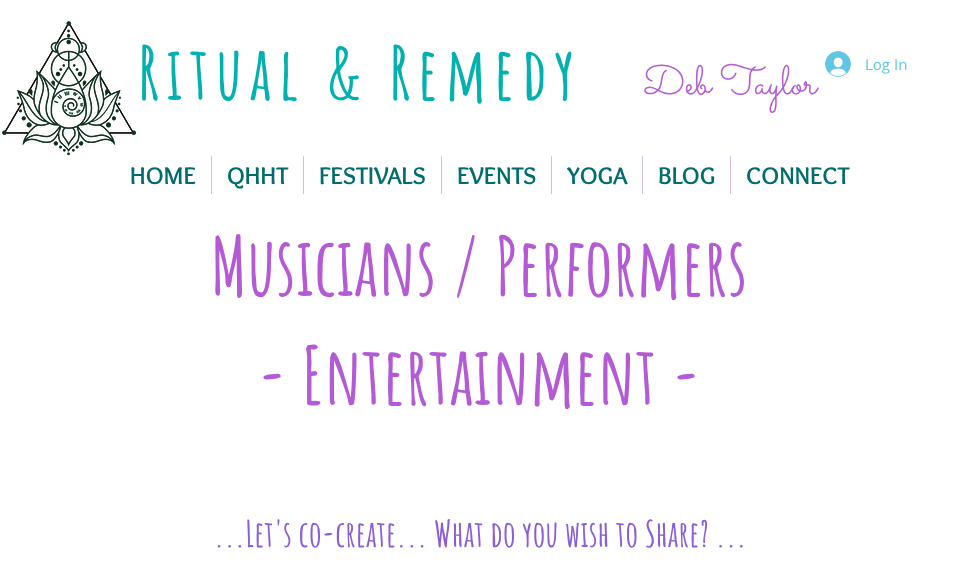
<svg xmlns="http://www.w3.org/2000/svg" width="970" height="577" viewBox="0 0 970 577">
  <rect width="100%" height="100%" fill="rgb(255,255,255)"/>
  <image x="0" y="19" width="136" height="137" href="pic1.png"/>
  <text x="138" y="100" font-family="Amatic SC" font-size="73" font-weight="bold" letter-spacing="7.25" fill="rgb(1,177,175)">Ritual &amp; Remedy</text>
  <text x="643" y="94" font-family="Sacramento" font-size="41" fill="rgb(180,90,212)">Deb Taylor</text>
  <image x="825" y="51" width="26" height="26" href="pic2.png"/>
  <text x="865" y="70" font-family="Open Sans" font-size="15" fill="rgb(95,198,227)">Log In</text>
  <text x="130" y="184" font-family="Overlock" font-size="25" font-weight="bold" fill="rgb(0,108,109)">HOME</text>
  <rect x="211" y="156" width="1" height="38" fill="rgb(216,189,226)"/>
  <text x="227" y="184" font-family="Overlock" font-size="25" font-weight="bold" fill="rgb(0,108,109)">QHHT</text>
  <rect x="303" y="156" width="1" height="38" fill="rgb(216,189,226)"/>
  <text x="319" y="184" font-family="Overlock" font-size="25" font-weight="bold" fill="rgb(0,108,109)">FESTIVALS</text>
  <rect x="441" y="156" width="1" height="38" fill="rgb(216,189,226)"/>
  <text x="457" y="184" font-family="Overlock" font-size="25" font-weight="bold" fill="rgb(0,108,109)">EVENTS</text>
  <rect x="551" y="156" width="1" height="38" fill="rgb(216,189,226)"/>
  <text x="567" y="184" font-family="Overlock" font-size="25" font-weight="bold" fill="rgb(0,108,109)">YOGA</text>
  <rect x="642" y="156" width="1" height="38" fill="rgb(216,189,226)"/>
  <text x="658" y="184" font-family="Overlock" font-size="25" font-weight="bold" fill="rgb(0,108,109)">BLOG</text>
  <rect x="730" y="156" width="1" height="38" fill="rgb(216,189,226)"/>
  <text x="746" y="184" font-family="Overlock" font-size="25" font-weight="bold" fill="rgb(0,108,109)">CONNECT</text>
  <g font-family="Amatic SC" font-size="80" font-weight="bold" fill="rgb(180,90,212)">
    <text x="211" y="296">Musicians / Performers</text>
    <text x="257" y="405">- Entertainment -</text>
  </g>
  <text x="214" y="547" font-family="Amatic SC" font-size="36" font-weight="bold" fill="rgb(138,94,214)">...Let's co-create... What do you wish to Share? ...</text>
</svg>
